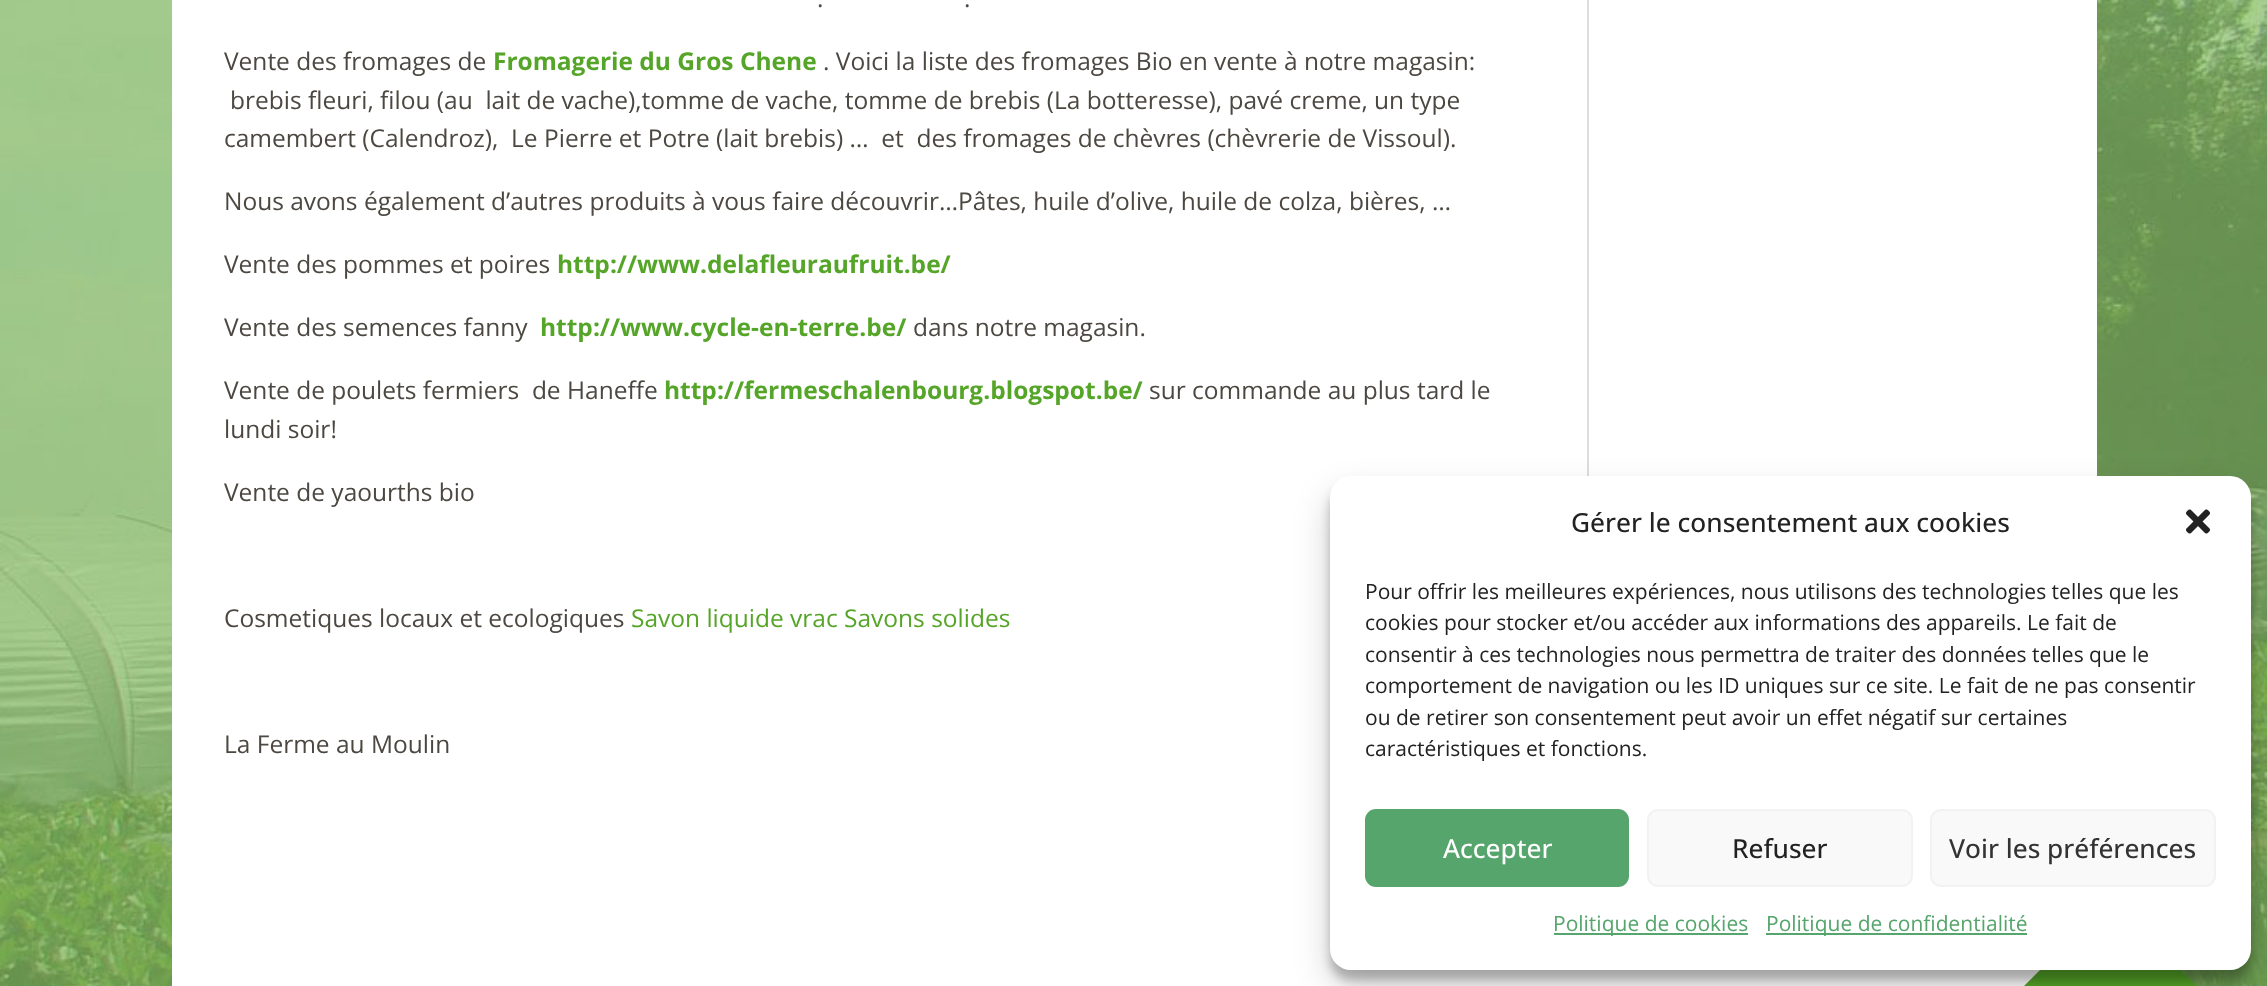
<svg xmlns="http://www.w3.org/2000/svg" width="2267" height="986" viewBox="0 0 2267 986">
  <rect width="100%" height="100%" fill="rgb(255,255,255)"/>
  <image x="0" y="0" width="2267" height="986" href="pic1.png"/>
  <rect x="172" y="0" width="1925" height="986" fill="rgb(255,255,255)"/>
  <rect x="1587" y="0" width="2" height="476" fill="rgb(221,221,221)"/>
  <g font-family="Open Sans" font-size="24.5" fill="rgb(76,72,65)">
    <text x="817" y="7">.</text>
    <text x="964" y="7">.</text>
    <text x="224" y="70">Vente des fromages de</text>
  </g>
  <text x="493" y="70" font-family="Open Sans" font-size="24.5" font-weight="bold" fill="rgb(85,165,40)">Fromagerie du Gros Chene</text>
  <g font-family="Open Sans" font-size="24.5" fill="rgb(76,72,65)">
    <text x="823" y="70">. Voici la liste des fromages Bio en vente à notre magasin:</text>
    <text x="230" y="109" xml:space="preserve">brebis fleuri, filou (au  lait de vache),tomme de vache, tomme de brebis (La botteresse), pavé creme, un type</text>
    <text x="224" y="147" xml:space="preserve">camembert (Calendroz),  Le Pierre et Potre (lait brebis) …  et  des fromages de chèvres (chèvrerie de Vissoul).</text>
    <text x="224" y="210">Nous avons également d’autres produits à vous faire découvrir…Pâtes, huile d’olive, huile de colza, bières, …</text>
    <text x="224" y="273">Vente des pommes et poires</text>
  </g>
  <text x="557" y="273" font-family="Open Sans" font-size="24.5" font-weight="bold" fill="rgb(85,165,40)">http://www.delafleuraufruit.be/</text>
  <text x="224" y="336" font-family="Open Sans" font-size="24.5" fill="rgb(76,72,65)">Vente des semences fanny</text>
  <text x="540" y="336" font-family="Open Sans" font-size="24.5" font-weight="bold" fill="rgb(85,165,40)">http://www.cycle-en-terre.be/</text>
  <g font-family="Open Sans" font-size="24.5" fill="rgb(76,72,65)">
    <text x="913" y="336">dans notre magasin.</text>
    <text x="224" y="399" xml:space="preserve">Vente de poulets fermiers  de Haneffe</text>
  </g>
  <text x="664" y="399" font-family="Open Sans" font-size="24.5" font-weight="bold" fill="rgb(85,165,40)">http://fermeschalenbourg.blogspot.be/</text>
  <g font-family="Open Sans" font-size="24.5" fill="rgb(76,72,65)">
    <text x="1149" y="399">sur commande au plus tard le</text>
    <text x="224" y="438">lundi soir!</text>
    <text x="224" y="501">Vente de yaourths bio</text>
    <text x="224" y="627">Cosmetiques locaux et ecologiques</text>
  </g>
  <text x="631" y="627" font-family="Open Sans" font-size="24.5" fill="rgb(85,165,40)">Savon liquide vrac Savons solides</text>
  <text x="224" y="753" font-family="Open Sans" font-size="24.5" fill="rgb(76,72,65)">La Ferme au Moulin</text>
  <path d="M2198 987H2023L2110 900Z" fill="rgb(85,165,40)"/>
  <rect x="1330" y="487" width="921" height="493" rx="21" fill="rgba(0,0,0,0.23)" filter="blur(5px)"/>
  <rect x="1330" y="494" width="921" height="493" rx="21" fill="rgba(0,0,0,0.19)" filter="blur(17.5px)"/>
  <rect x="1330" y="476" width="921" height="494" rx="21" fill="rgb(255,255,255)"/>
  <text x="1571" y="532" font-family="Open Sans" font-size="26.25" font-weight="500" fill="rgb(34,34,34)">Gérer le consentement aux cookies</text>
  <image x="2186" y="509" width="24" height="25" href="pic2.png"/>
  <g font-family="Open Sans" font-size="21" fill="rgb(34,34,34)">
    <text>
      <tspan x="1365" y="599">Pour offrir les meilleures expériences, nous utilisons des technologies telles que les</tspan>
      <tspan x="1365" y="630">cookies pour stocker et/ou accéder aux informations des appareils. Le fait de</tspan>
      <tspan x="1365" y="662">consentir à ces technologies nous permettra de traiter des données telles que le</tspan>
      <tspan x="1365" y="693">comportement de navigation ou les ID uniques sur ce site. Le fait de ne pas consentir</tspan>
      <tspan x="1365" y="725">ou de retirer son consentement peut avoir un effet négatif sur certaines</tspan>
      <tspan x="1365" y="756">caractéristiques et fonctions.</tspan>
    </text>
  </g>
  <rect x="1366" y="810" width="262" height="76" rx="10" fill="rgb(85,165,108)" stroke="rgb(85,165,108)" stroke-width="2"/>
  <text x="1443" y="858" font-family="Open Sans" font-size="26.25" font-weight="500" fill="rgb(255,255,255)">Accepter</text>
  <rect x="1648" y="810" width="264" height="76" rx="10" fill="rgb(249,249,249)" stroke="rgb(242,242,242)" stroke-width="2"/>
  <text x="1732" y="858" font-family="Open Sans" font-size="26.25" font-weight="500" fill="rgb(34,34,34)">Refuser</text>
  <rect x="1931" y="810" width="284" height="76" rx="10" fill="rgb(249,249,249)" stroke="rgb(242,242,242)" stroke-width="2"/>
  <text x="1949" y="858" font-family="Open Sans" font-size="26.25" font-weight="500" fill="rgb(51,51,51)">Voir les préférences</text>
  <rect x="1554" y="933" width="194" height="2" fill="rgb(85,165,108)"/>
  <text x="1553" y="931" font-family="Open Sans" font-size="21" fill="rgb(85,165,108)">Politique de cookies</text>
  <rect x="1766" y="933" width="261" height="2" fill="rgb(85,165,108)"/>
  <text x="1766" y="931" font-family="Open Sans" font-size="21" fill="rgb(85,165,108)">Politique de confidentialité</text>
</svg>
